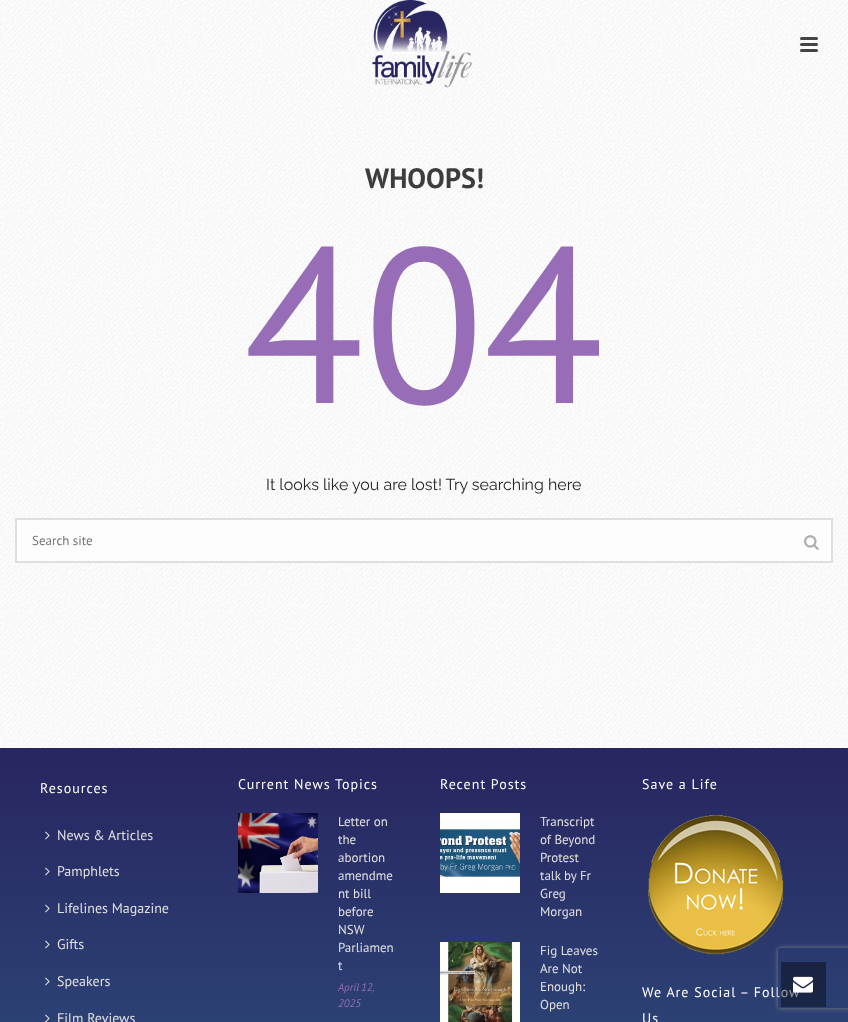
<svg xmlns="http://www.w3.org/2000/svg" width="848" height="1022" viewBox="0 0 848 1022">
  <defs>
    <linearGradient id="g1" gradientUnits="userSpaceOnUse" x1="424" y1="748" x2="424" y2="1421"><stop offset="0" stop-color="rgb(40,37,96)"/><stop offset="1" stop-color="rgb(49,105,145)"/></linearGradient>
    <clipPath id="clip1"><path d="M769 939H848V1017H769ZM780 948H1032C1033 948 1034 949 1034 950V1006C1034 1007 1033 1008 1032 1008H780C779 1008 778 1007 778 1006V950C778 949 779 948 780 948Z" clip-rule="evenodd"/></clipPath>
  </defs>
  <rect width="100%" height="100%" fill="rgb(255,255,255)"/>
  <image x="0" y="0" width="848" height="90" href="pic1.png"/>
  <image x="372" y="0" width="100" height="88" href="pic2.png"/>
  <rect x="800" y="37" width="18" height="3" rx="1.5" fill="rgb(68,68,68)"/>
  <rect x="800" y="43" width="18" height="3" rx="1.5" fill="rgb(68,68,68)"/>
  <rect x="800" y="49" width="18" height="3" rx="1.5" fill="rgb(68,68,68)"/>
  <image x="0" y="90" width="848" height="658" href="pic3.png"/>
  <text x="365" y="188" font-family="PT Sans" font-size="28" font-weight="bold" fill="rgb(61,61,61)">WHOOPS!</text>
  <text x="244" y="403" font-family="PT Sans" font-size="220" fill="rgb(150,109,182)">404</text>
  <text x="266" y="490" font-family="Raleway" font-size="16" fill="rgb(37,37,37)">It looks like you are lost! Try searching here</text>
  <rect x="16" y="519" width="816" height="43" fill="rgb(253,253,253)" stroke="rgb(223,223,223)" stroke-width="2"/>
  <text x="32" y="545" font-family="PT Sans" font-size="13" fill="rgb(117,117,117)">Search site</text>
  <image x="804" y="535" width="15" height="15" href="pic4.png"/>
  <rect x="0" y="748" width="848" height="274" fill="url(#g1)"/>
  <text x="40" y="793" font-family="PT Sans" font-size="14" letter-spacing="1" fill="rgb(255,255,255)">Resources</text>
  <image x="45" y="831" width="5" height="9" href="pic5.png"/>
  <text x="57" y="840" font-family="PT Sans" font-size="14" fill="rgb(224,224,224)">News &amp; Articles</text>
  <image x="45" y="867" width="5" height="9" href="pic6.png"/>
  <text x="57" y="876" font-family="PT Sans" font-size="14" fill="rgb(224,224,224)">Pamphlets</text>
  <image x="45" y="904" width="5" height="9" href="pic7.png"/>
  <text x="57" y="913" font-family="PT Sans" font-size="14" fill="rgb(224,224,224)">Lifelines Magazine</text>
  <image x="45" y="940" width="5" height="9" href="pic8.png"/>
  <text x="57" y="949" font-family="PT Sans" font-size="14" fill="rgb(224,224,224)">Gifts</text>
  <image x="45" y="977" width="5" height="9" href="pic9.png"/>
  <text x="57" y="986" font-family="PT Sans" font-size="14" fill="rgb(224,224,224)">Speakers</text>
  <image x="45" y="1014" width="5" height="8" href="pic10.png"/>
  <text x="57" y="1023" font-family="PT Sans" font-size="14" fill="rgb(224,224,224)">Film Reviews</text>
  <text x="238" y="789" font-family="PT Sans" font-size="14" letter-spacing="1" fill="rgb(255,255,255)">Current News Topics</text>
  <image x="238" y="813" width="80" height="80" href="pic11.png"/>
  <g font-family="PT Sans" font-size="13" fill="rgb(224,224,224)">
    <text>
      <tspan x="338" y="826">Letter on</tspan>
      <tspan x="338" y="844">the</tspan>
      <tspan x="338" y="862">abortion</tspan>
      <tspan x="338" y="880">amendme</tspan>
      <tspan x="338" y="898">nt bill</tspan>
      <tspan x="338" y="916">before</tspan>
      <tspan x="338" y="934">NSW</tspan>
      <tspan x="338" y="952">Parliamen</tspan>
      <tspan x="338" y="970">t</tspan>
    </text>
  </g>
  <g font-family="PT Sans" font-size="11" font-style="italic" fill="rgb(150,109,182)">
    <text>
      <tspan x="338" y="991" word-spacing="-1">April 12,</tspan>
      <tspan x="338" y="1007">2025</tspan>
    </text>
  </g>
  <text x="440" y="789" font-family="PT Sans" font-size="14" letter-spacing="1" fill="rgb(255,255,255)">Recent Posts</text>
  <image x="440" y="813" width="80" height="80" href="pic12.png"/>
  <g font-family="PT Sans" font-size="13" fill="rgb(224,224,224)">
    <text>
      <tspan x="540" y="826">Transcript</tspan>
      <tspan x="540" y="844">of Beyond</tspan>
      <tspan x="540" y="862">Protest</tspan>
      <tspan x="540" y="880">talk by Fr</tspan>
      <tspan x="540" y="898">Greg</tspan>
      <tspan x="540" y="916">Morgan</tspan>
    </text>
  </g>
  <image x="440" y="942" width="80" height="80" href="pic13.png"/>
  <g font-family="PT Sans" font-size="13" fill="rgb(224,224,224)">
    <text>
      <tspan x="540" y="955">Fig Leaves</tspan>
      <tspan x="540" y="973">Are Not</tspan>
      <tspan x="540" y="991">Enough:</tspan>
      <tspan x="540" y="1009">Open</tspan>
    </text>
  </g>
  <text x="642" y="789" font-family="PT Sans" font-size="14" letter-spacing="1" fill="rgb(255,255,255)">Save a Life</text>
  <image x="648" y="815" width="136" height="140" href="pic14.png"/>
  <g font-family="PT Sans" font-size="14" letter-spacing="1" fill="rgb(255,255,255)">
    <text>
      <tspan x="642" y="997">We Are Social – Follow</tspan>
      <tspan x="642" y="1023">Us</tspan>
    </text>
  </g>
  <g clip-path="url(#clip1)">
    <rect x="778" y="948" width="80" height="60" rx="2" fill="rgb(128,128,128)" filter="blur(2.5px)"/>
  </g>
  <rect x="781" y="962" width="45" height="45" fill="rgba(0,0,0,0.4)"/>
  <image x="793" y="976" width="20" height="17" href="pic15.png"/>
</svg>
